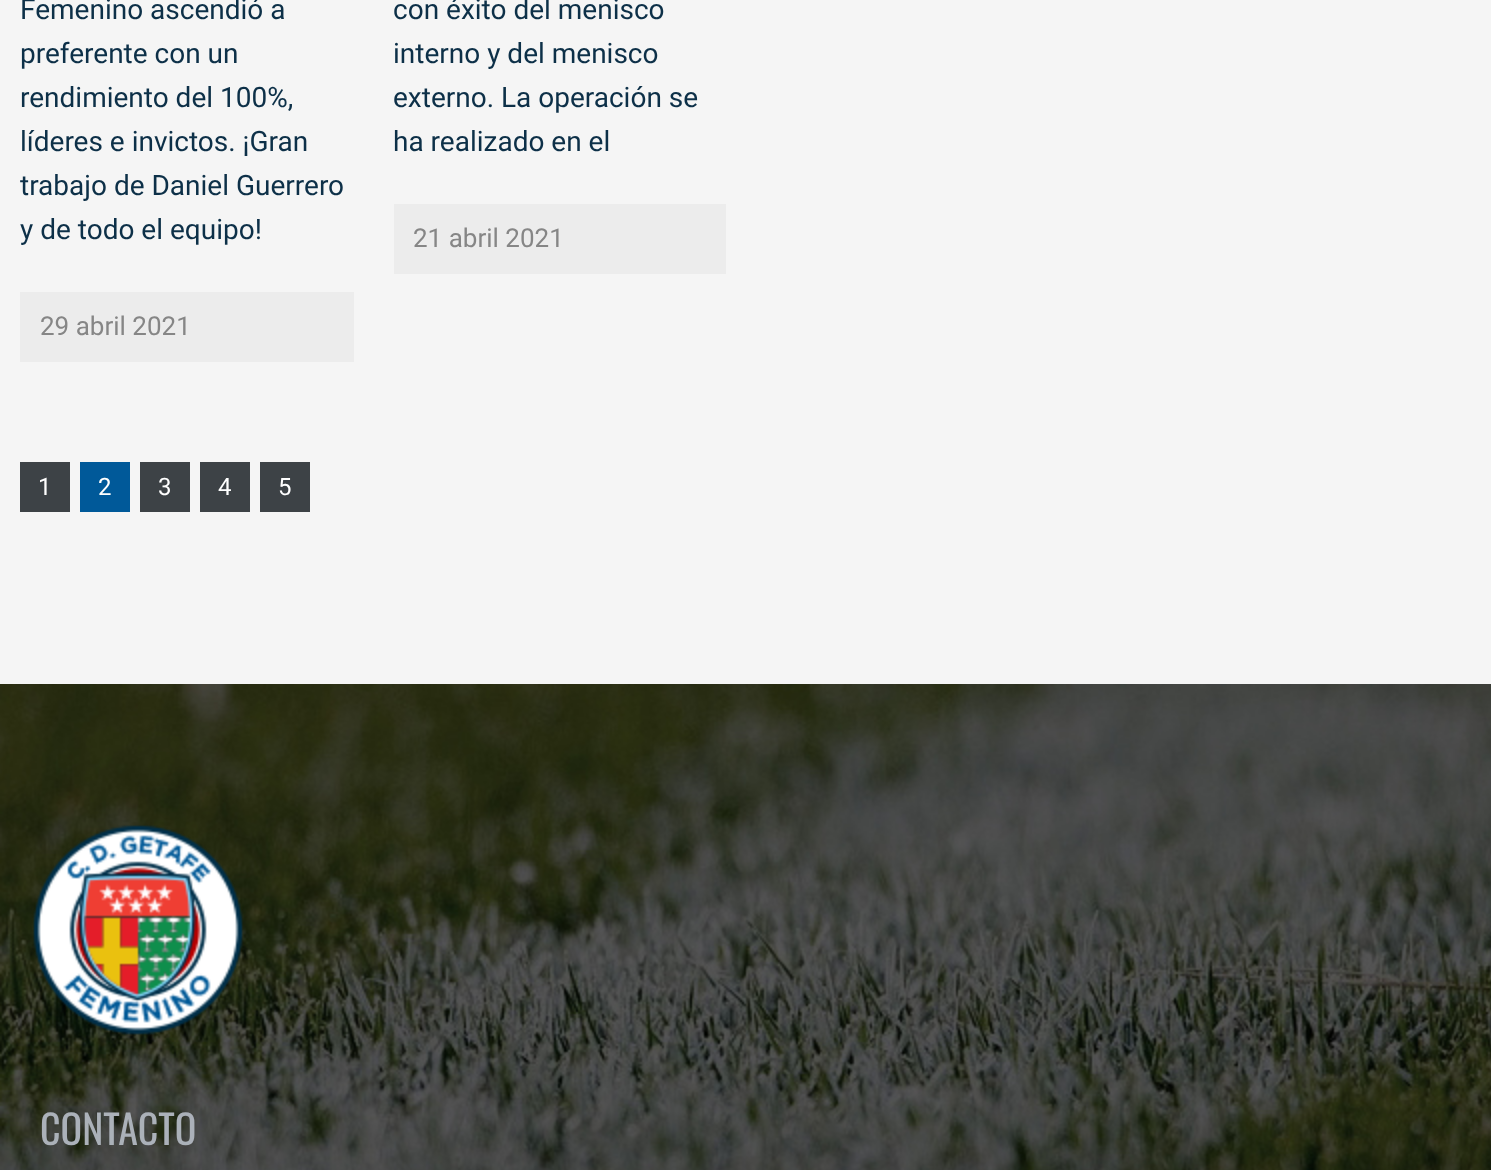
<svg xmlns="http://www.w3.org/2000/svg" width="1491" height="1170" viewBox="0 0 1491 1170">
  <rect width="100%" height="100%" fill="rgb(245,245,245)"/>
  <g font-family="Roboto" font-size="28" fill="rgb(13,48,72)">
    <text>
      <tspan x="20" y="19">Femenino ascendió a</tspan>
      <tspan x="20" y="63">preferente con un</tspan>
      <tspan x="20" y="107">rendimiento del 100%,</tspan>
      <tspan x="20" y="151">líderes e invictos. ¡Gran</tspan>
      <tspan x="20" y="195">trabajo de Daniel Guerrero</tspan>
      <tspan x="20" y="239">y de todo el equipo!</tspan>
    </text>
  </g>
  <rect x="20" y="292" width="334" height="70" fill="rgb(236,236,236)"/>
  <text x="40" y="335" font-family="Roboto" font-size="26" fill="rgb(134,134,134)">29 abril 2021</text>
  <g font-family="Roboto" font-size="28" fill="rgb(13,48,72)">
    <text>
      <tspan x="393" y="19">con éxito del menisco</tspan>
      <tspan x="393" y="63">interno y del menisco</tspan>
      <tspan x="393" y="107">externo. La operación se</tspan>
      <tspan x="393" y="151">ha realizado en el</tspan>
    </text>
  </g>
  <rect x="394" y="204" width="332" height="70" fill="rgb(236,236,236)"/>
  <text x="413" y="247" font-family="Roboto" font-size="26" fill="rgb(134,134,134)">21 abril 2021</text>
  <rect x="20" y="462" width="50" height="50" fill="rgb(61,66,70)"/>
  <text x="38" y="495" font-family="Roboto" font-size="24" fill="rgb(255,255,255)">1</text>
  <rect x="80" y="462" width="50" height="50" fill="rgb(0,89,153)"/>
  <text x="98" y="495" font-family="Roboto" font-size="24" fill="rgb(255,255,255)">2</text>
  <rect x="140" y="462" width="50" height="50" fill="rgb(61,66,70)"/>
  <text x="158" y="495" font-family="Roboto" font-size="24" fill="rgb(255,255,255)">3</text>
  <rect x="200" y="462" width="50" height="50" fill="rgb(61,66,70)"/>
  <text x="218" y="495" font-family="Roboto" font-size="24" fill="rgb(255,255,255)">4</text>
  <rect x="260" y="462" width="50" height="50" fill="rgb(61,66,70)"/>
  <text x="278" y="495" font-family="Roboto" font-size="24" fill="rgb(255,255,255)">5</text>
  <image x="0" y="684" width="1491" height="486" href="pic1.png"/>
  <image x="33" y="825" width="210" height="210" href="pic2.png"/>
  <text x="40" y="1145" font-family="Oswald" font-size="40" fill="rgb(171,177,185)">CONTACTO</text>
</svg>
